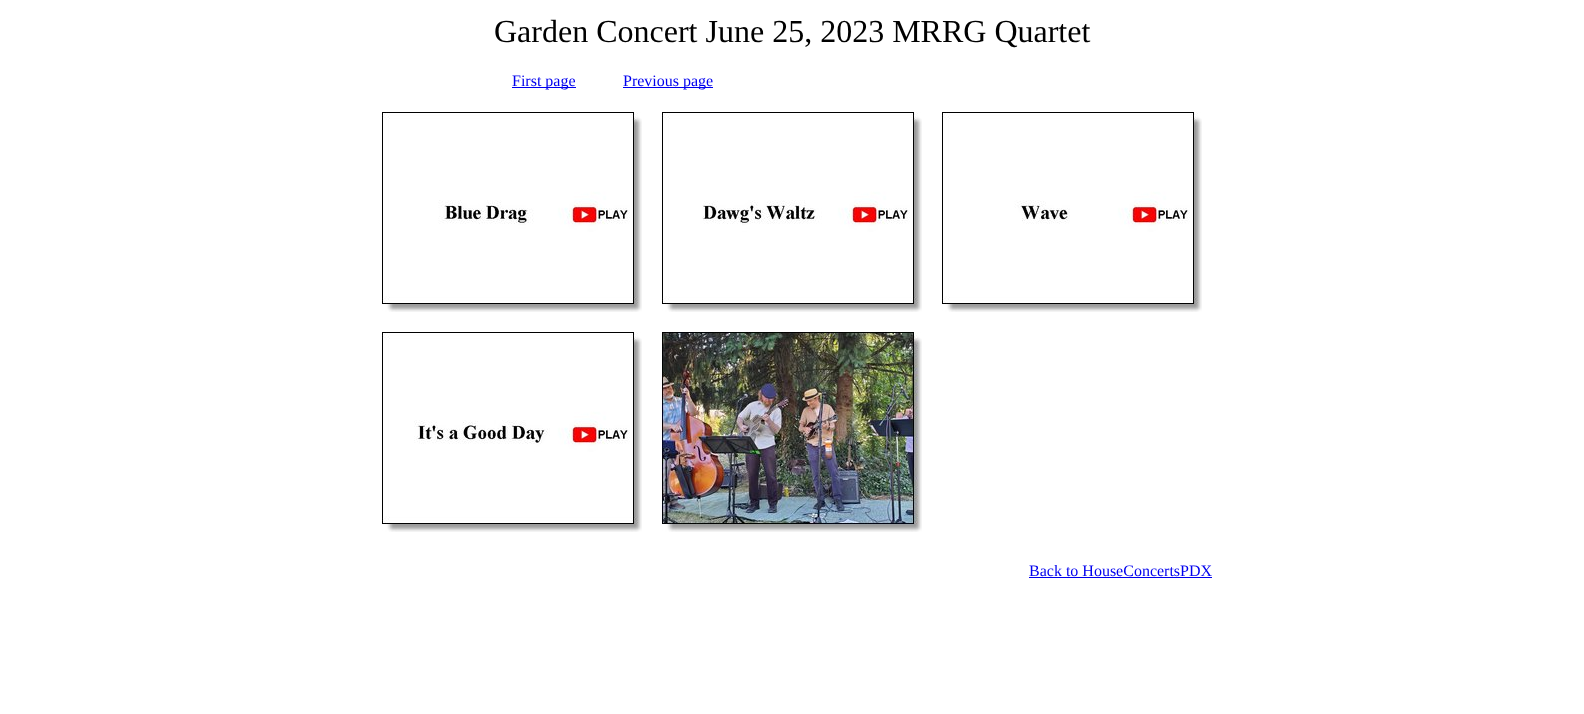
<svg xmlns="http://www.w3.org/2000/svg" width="1584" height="714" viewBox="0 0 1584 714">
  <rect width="100%" height="100%" fill="rgb(255,255,255)"/>
  <text x="494" y="42" font-family="Liberation Serif" font-size="32" fill="rgb(0,0,0)">Garden Concert June 25, 2023 MRRG Quartet</text>
  <rect x="512" y="87" width="64" height="1" fill="rgb(0,0,238)"/>
  <text x="512" y="86" font-family="Liberation Serif" font-size="16" fill="rgb(0,0,238)">First page</text>
  <rect x="623" y="87" width="90" height="1" fill="rgb(0,0,238)"/>
  <text x="623" y="86" font-family="Liberation Serif" font-size="16" fill="rgb(0,0,238)">Previous page</text>
  <image x="382" y="112" width="260" height="200" href="pic1.png"/>
  <image x="662" y="112" width="260" height="200" href="pic2.png"/>
  <image x="942" y="112" width="260" height="200" href="pic3.png"/>
  <image x="382" y="332" width="260" height="200" href="pic4.png"/>
  <image x="662" y="332" width="260" height="200" href="pic5.png"/>
  <text x="1029" y="576" font-family="Liberation Serif" font-size="16" fill="rgb(0,0,238)">Back to HouseConcertsPDX</text>
  <rect x="1029" y="577" width="183" height="1" fill="rgb(0,0,238)"/>
</svg>
